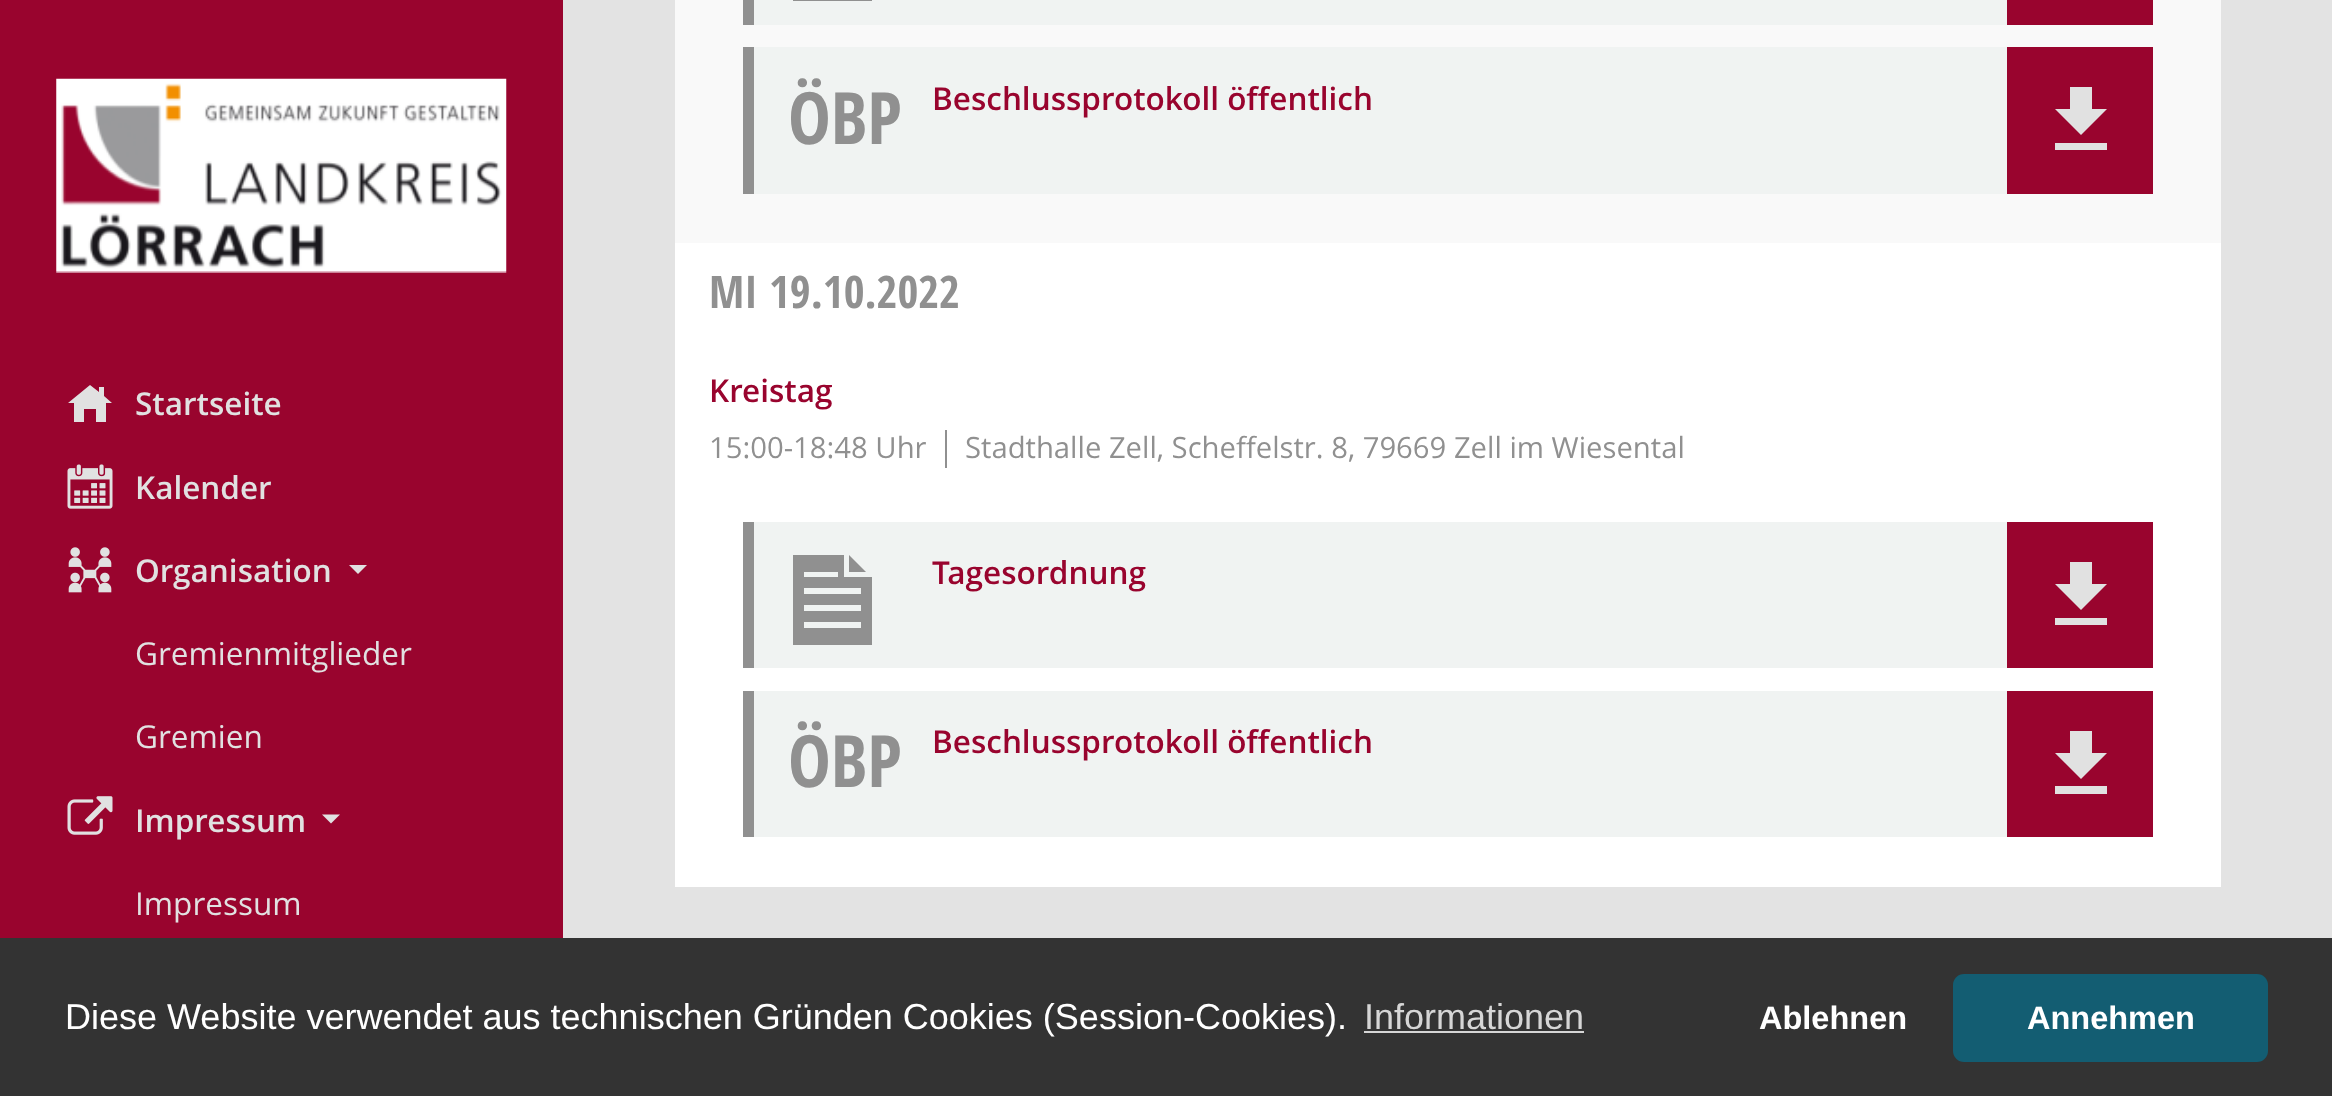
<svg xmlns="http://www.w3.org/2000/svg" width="2332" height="1096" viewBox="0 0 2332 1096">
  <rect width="100%" height="100%" fill="rgb(227,227,227)"/>
  <rect x="0" y="0" width="563" height="938" fill="rgb(153,4,46)"/>
  <image x="56" y="78" width="451" height="195" href="pic1.png"/>
  <path d="M104 396V387H99V392L90 385L68 403H74V422H84V409H96V422H106V403H112Z" fill="rgb(225,225,225)"/>
  <text x="135" y="415" font-family="Open Sans" font-size="31.5" font-weight="600" fill="rgb(225,225,225)">Startseite</text>
  <image x="67" y="464" width="46" height="45" href="pic2.png"/>
  <text x="135" y="499" font-family="Open Sans" font-size="31.5" font-weight="600" fill="rgb(225,225,225)">Kalender</text>
  <image x="68" y="547" width="44" height="46" href="pic3.png"/>
  <text x="135" y="582" font-family="Open Sans" font-size="31.5" font-weight="600" fill="rgb(225,225,225)">Organisation</text>
  <path d="M349 565H367L358 574Z" fill="rgb(225,225,225)"/>
  <g font-family="Open Sans" font-size="31.5" fill="rgb(225,225,225)">
    <text x="135" y="665">Gremienmitglieder</text>
    <text x="135" y="748">Gremien</text>
  </g>
  <image x="67" y="796" width="46" height="39" href="pic4.png"/>
  <text x="135" y="832" font-family="Open Sans" font-size="31.5" font-weight="600" fill="rgb(225,225,225)">Impressum</text>
  <path d="M322 814.5H340L331 823.5Z" fill="rgb(225,225,225)"/>
  <text x="135" y="915" font-family="Open Sans" font-size="31.5" fill="rgb(225,225,225)">Impressum</text>
  <rect x="675" y="243" width="1546" height="644" fill="rgb(255,255,255)"/>
  <rect x="675" y="0" width="1546" height="243" fill="rgb(249,249,249)"/>
  <rect x="754" y="0" width="1253" height="25" fill="rgb(240,243,242)"/>
  <rect x="743" y="0" width="11" height="25" fill="rgb(144,144,144)"/>
  <path d="M866-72H849V-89ZM872-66V1H793V-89H844V-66ZM804-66H838V-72H804ZM861-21H804V-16H861ZM861-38H804V-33H861ZM861-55H804V-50H861Z" fill="rgb(144,144,144)"/>
  <rect x="2007" y="0" width="146" height="25" fill="rgb(153,4,46)"/>
  <rect x="754" y="47" width="1253" height="147" fill="rgb(240,243,242)"/>
  <rect x="743" y="47" width="11" height="147" fill="rgb(144,144,144)"/>
  <text x="788" y="144" font-family="Open Sans Condensed" font-size="72" font-weight="bold" fill="rgb(144,144,144)">ÖBP</text>
  <text x="932" y="110" font-family="Open Sans" font-size="31.5" font-weight="600" fill="rgb(153,4,46)">Beschlussprotokoll öffentlich</text>
  <rect x="2007" y="47" width="146" height="147" fill="rgb(153,4,46)"/>
  <path d="M2107 109H2092V87H2070V109H2055L2081 135ZM2055 143V150H2107V143Z" fill="rgb(225,225,225)"/>
  <g font-family="Open Sans Condensed" font-size="45" font-weight="bold" fill="rgb(144,144,144)">
    <text x="709" y="308">MI</text>
    <text x="769" y="308">19.10.2022</text>
  </g>
  <text x="709" y="402" font-family="Open Sans" font-size="31.5" font-weight="600" fill="rgb(153,4,46)">Kreistag</text>
  <text x="709" y="458" font-family="Open Sans" font-size="29.25" fill="rgb(144,144,144)">15:00-18:48 Uhr</text>
  <rect x="945" y="430" width="2" height="38" fill="rgb(144,144,144)"/>
  <text x="965" y="458" font-family="Open Sans" font-size="29.25" fill="rgb(144,144,144)">Stadthalle Zell, Scheffelstr. 8, 79669 Zell im Wiesental</text>
  <rect x="754" y="522" width="1253" height="146" fill="rgb(240,243,242)"/>
  <rect x="743" y="522" width="11" height="146" fill="rgb(144,144,144)"/>
  <path d="M866 572H849V555ZM872 577V645H793V555H844V577ZM804 577H838V572H804ZM861 622H804V628H861ZM861 605H804V611H861ZM861 588H804V594H861Z" fill="rgb(144,144,144)"/>
  <text x="932" y="584" font-family="Open Sans" font-size="31.5" font-weight="600" fill="rgb(153,4,46)">Tagesordnung</text>
  <rect x="2007" y="522" width="146" height="146" fill="rgb(153,4,46)"/>
  <path d="M2107 584H2092V562H2070V584H2055L2081 610ZM2055 618V625H2107V618Z" fill="rgb(225,225,225)"/>
  <rect x="754" y="691" width="1253" height="146" fill="rgb(240,243,242)"/>
  <rect x="743" y="691" width="11" height="146" fill="rgb(144,144,144)"/>
  <text x="788" y="787" font-family="Open Sans Condensed" font-size="72" font-weight="bold" fill="rgb(144,144,144)">ÖBP</text>
  <text x="932" y="753" font-family="Open Sans" font-size="31.5" font-weight="600" fill="rgb(153,4,46)">Beschlussprotokoll öffentlich</text>
  <rect x="2007" y="691" width="146" height="146" fill="rgb(153,4,46)"/>
  <path d="M2107 753H2092V731H2070V753H2055L2081 779ZM2055 786V794H2107V786Z" fill="rgb(225,225,225)"/>
  <rect x="0" y="938" width="2332" height="158" fill="rgb(51,51,51)"/>
  <text x="65" y="1029" font-family="Liberation Sans" font-size="36" fill="rgb(255,255,255)">Diese Website verwendet aus technischen Gründen Cookies (Session-Cookies).</text>
  <text x="1364" y="1029" font-family="Liberation Sans" font-size="36" fill="rgb(214,214,214)">Informationen</text>
  <rect x="1364" y="1031" width="220" height="2" fill="rgb(214,214,214)"/>
  <text x="1759" y="1029" font-family="Liberation Sans" font-size="32.5" font-weight="bold" fill="rgb(255,255,255)">Ablehnen</text>
  <rect x="1953" y="974" width="315" height="88" rx="11" fill="rgb(19,93,114)"/>
  <text x="2027" y="1029" font-family="Liberation Sans" font-size="32.5" font-weight="bold" fill="rgb(255,255,255)">Annehmen</text>
</svg>
